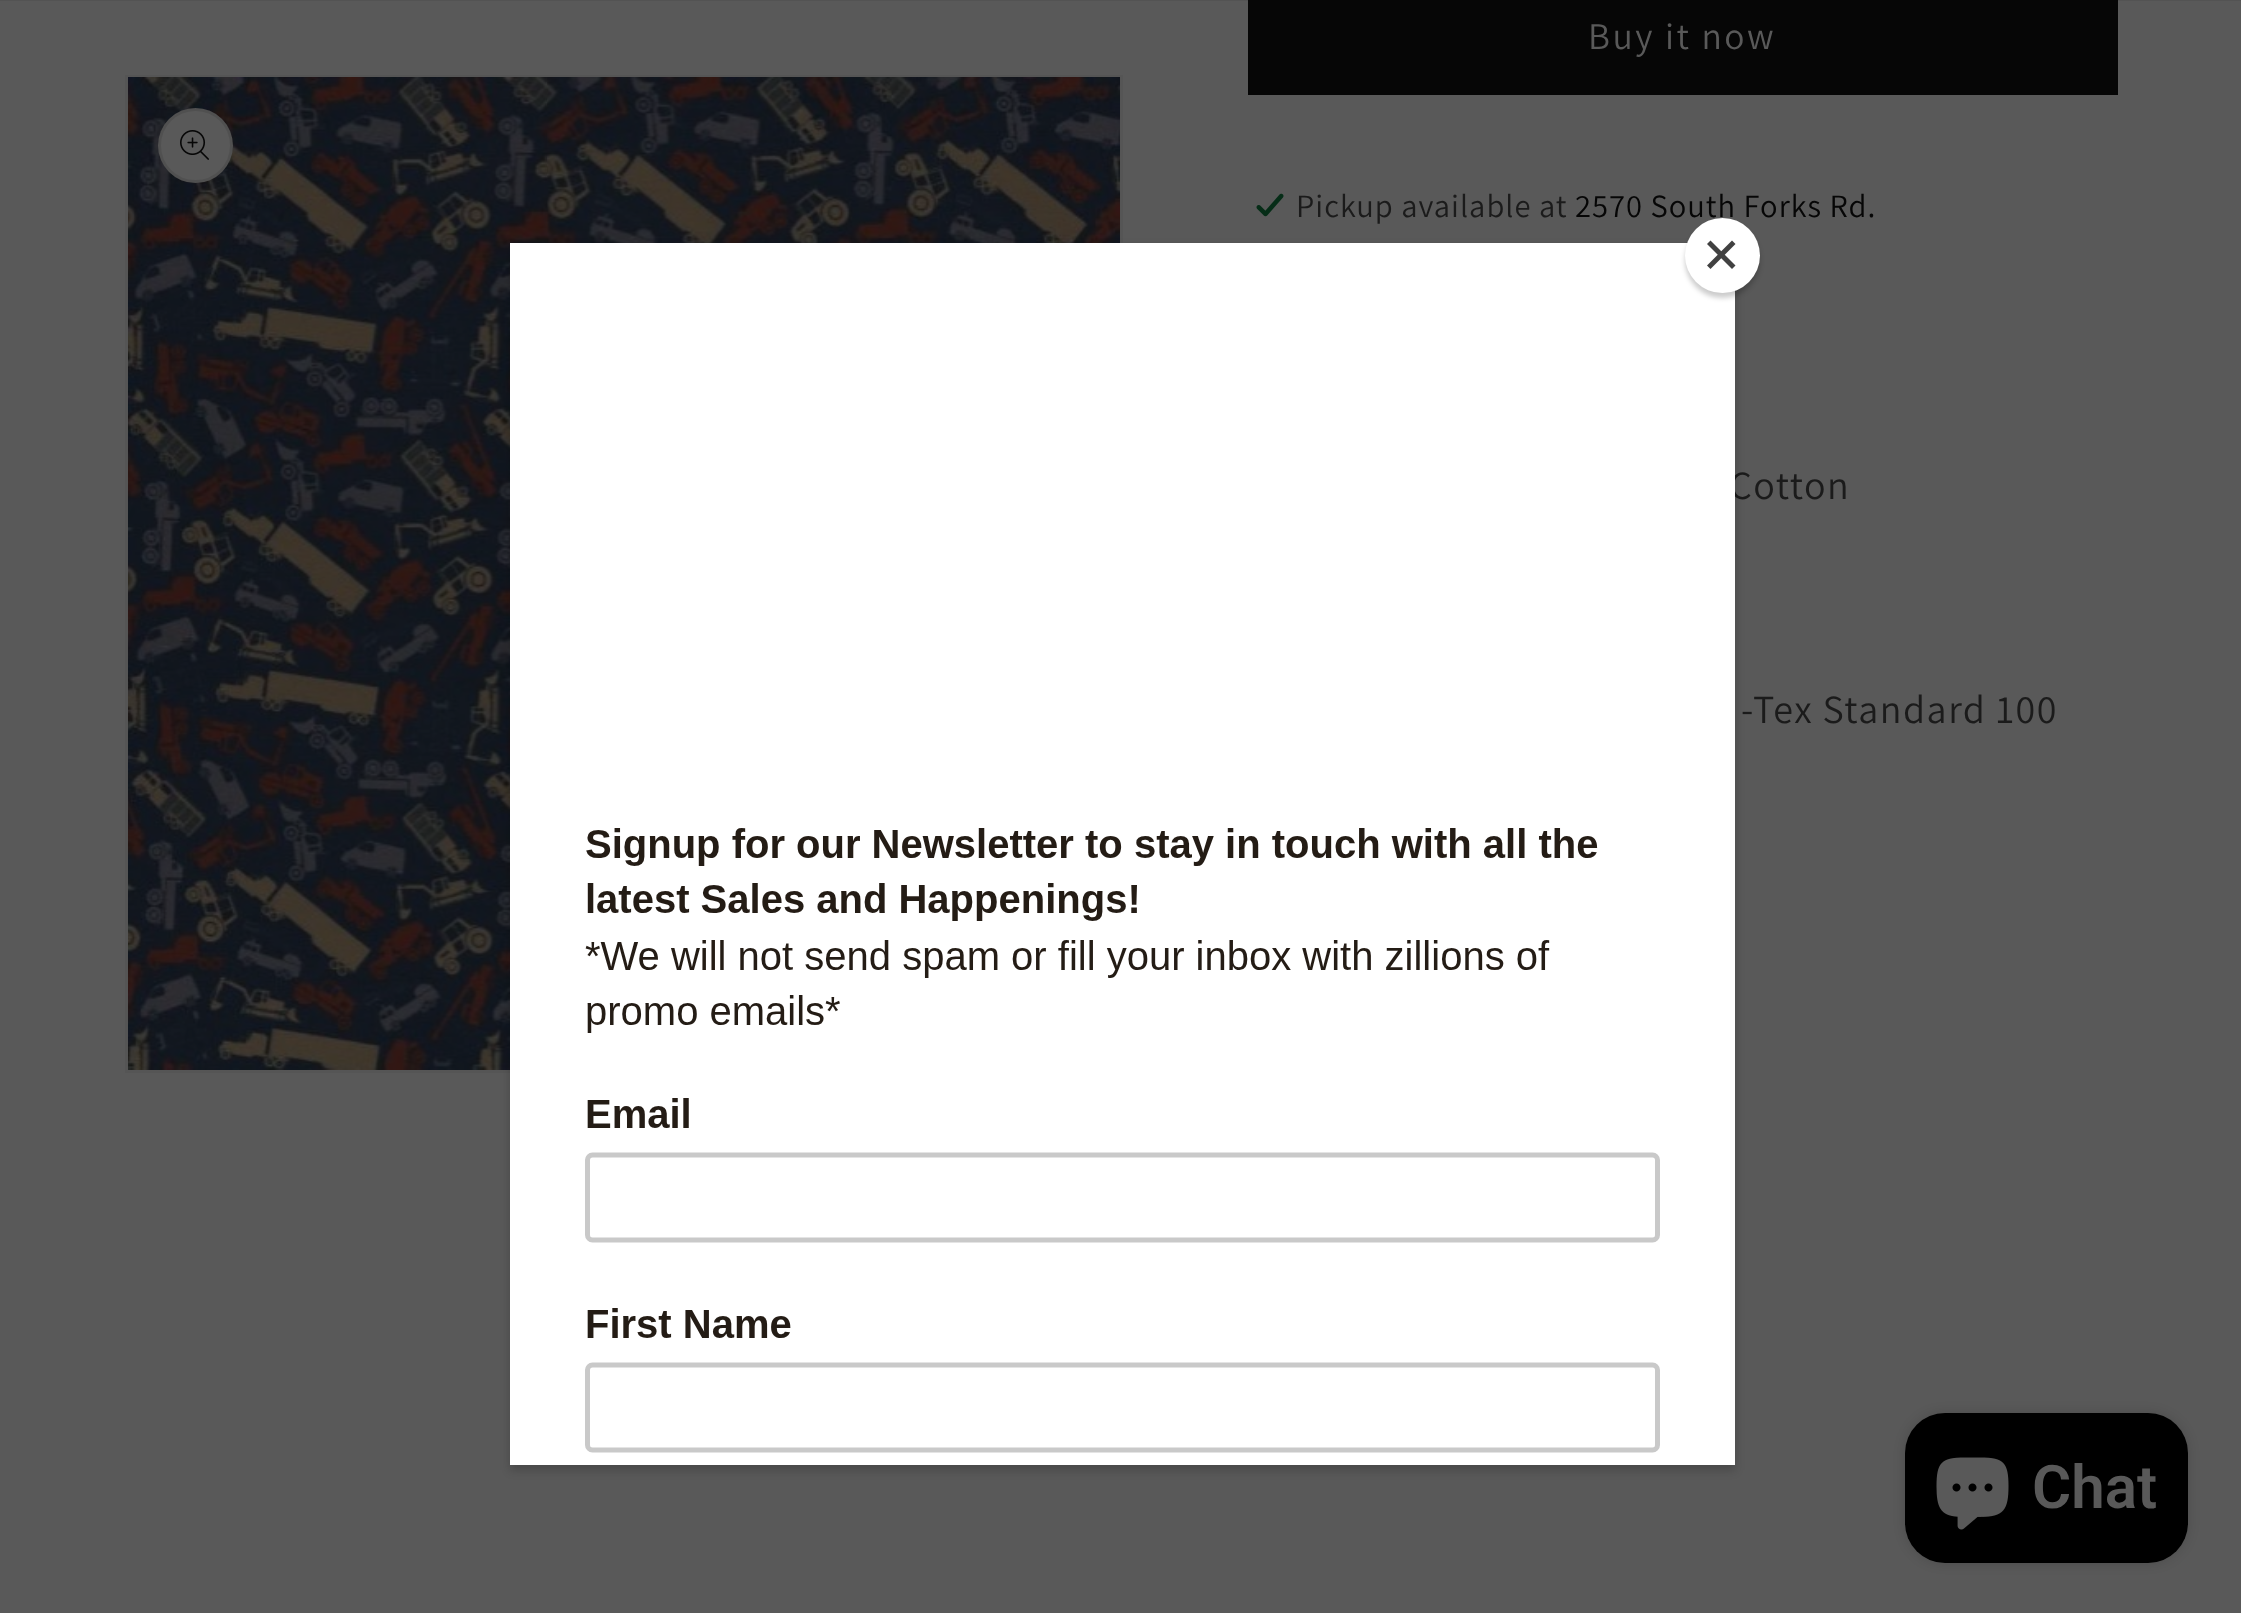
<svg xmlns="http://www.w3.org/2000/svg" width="2241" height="1613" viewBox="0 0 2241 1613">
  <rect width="100%" height="100%" fill="rgb(89,89,89)"/>
  <rect x="0" y="0" width="2241" height="1" fill="rgb(83,83,83)"/>
  <rect x="126.5" y="76.5" width="995" height="995" fill="none" stroke="rgb(85,85,85)" stroke-width="3"/>
  <image x="128" y="77" width="992" height="993" href="pic1.png"/>
  <circle cx="195.5" cy="145.5" r="37.5" fill="rgb(89,89,89)"/>
  <circle cx="195.5" cy="145.5" r="36" fill="none" stroke="rgba(6,6,6,0.1)" stroke-width="3"/>
  <image x="180" y="130" width="29" height="30" href="pic2.png"/>
  <rect x="1248" y="0" width="870" height="95" fill="rgb(6,6,6)"/>
  <text x="1588" y="49" font-family="Assistant" font-size="37.5" letter-spacing="2.5" fill="rgb(89,89,89)">Buy it now</text>
  <image x="1256" y="193" width="28" height="24" href="pic3.png"/>
  <text x="1296" y="217" font-family="Assistant" font-size="32.5" letter-spacing="1" fill="rgb(27,27,27)">Pickup available at</text>
  <text x="1575" y="217" font-family="Assistant" font-size="32.5" letter-spacing="1" fill="rgb(6,6,6)">2570 South Forks Rd.</text>
  <g font-family="Assistant" font-size="40" letter-spacing="1.5" fill="rgb(27,27,27)">
    <text x="1729" y="499">Cotton</text>
    <text x="1741" y="723">-Tex Standard 100</text>
  </g>
  <rect x="510" y="248" width="1225" height="1222" fill="rgba(0,0,0,0.2)" filter="blur(5px)"/>
  <image x="510" y="243" width="1225" height="1222" href="pic4.png"/>
  <rect x="1685" y="223" width="75" height="75" rx="37.5" fill="rgba(0,0,0,0.2)" filter="blur(2.5px)"/>
  <circle cx="1722.5" cy="255.5" r="37.5" fill="rgb(255,255,255)"/>
  <path d="M1732 240.5L1735.5 244L1710.5 269L1707 265.5Z" fill="rgb(65,65,65)"/>
  <path d="M1707 244L1710.5 240.5L1735.5 265.5L1732 269Z" fill="rgb(65,65,65)"/>
  <rect x="1905" y="1413" width="283" height="150" rx="40" fill="rgba(0,0,0,0.15)" filter="blur(6px)"/>
  <rect x="1905" y="1413" width="283" height="150" rx="40" fill="rgb(0,0,0)"/>
  <image x="1936" y="1457" width="73" height="73" href="pic5.png"/>
  <text x="2032" y="1508" font-family="Roboto" font-size="60" font-weight="600" fill="rgb(89,89,89)">Chat</text>
</svg>
